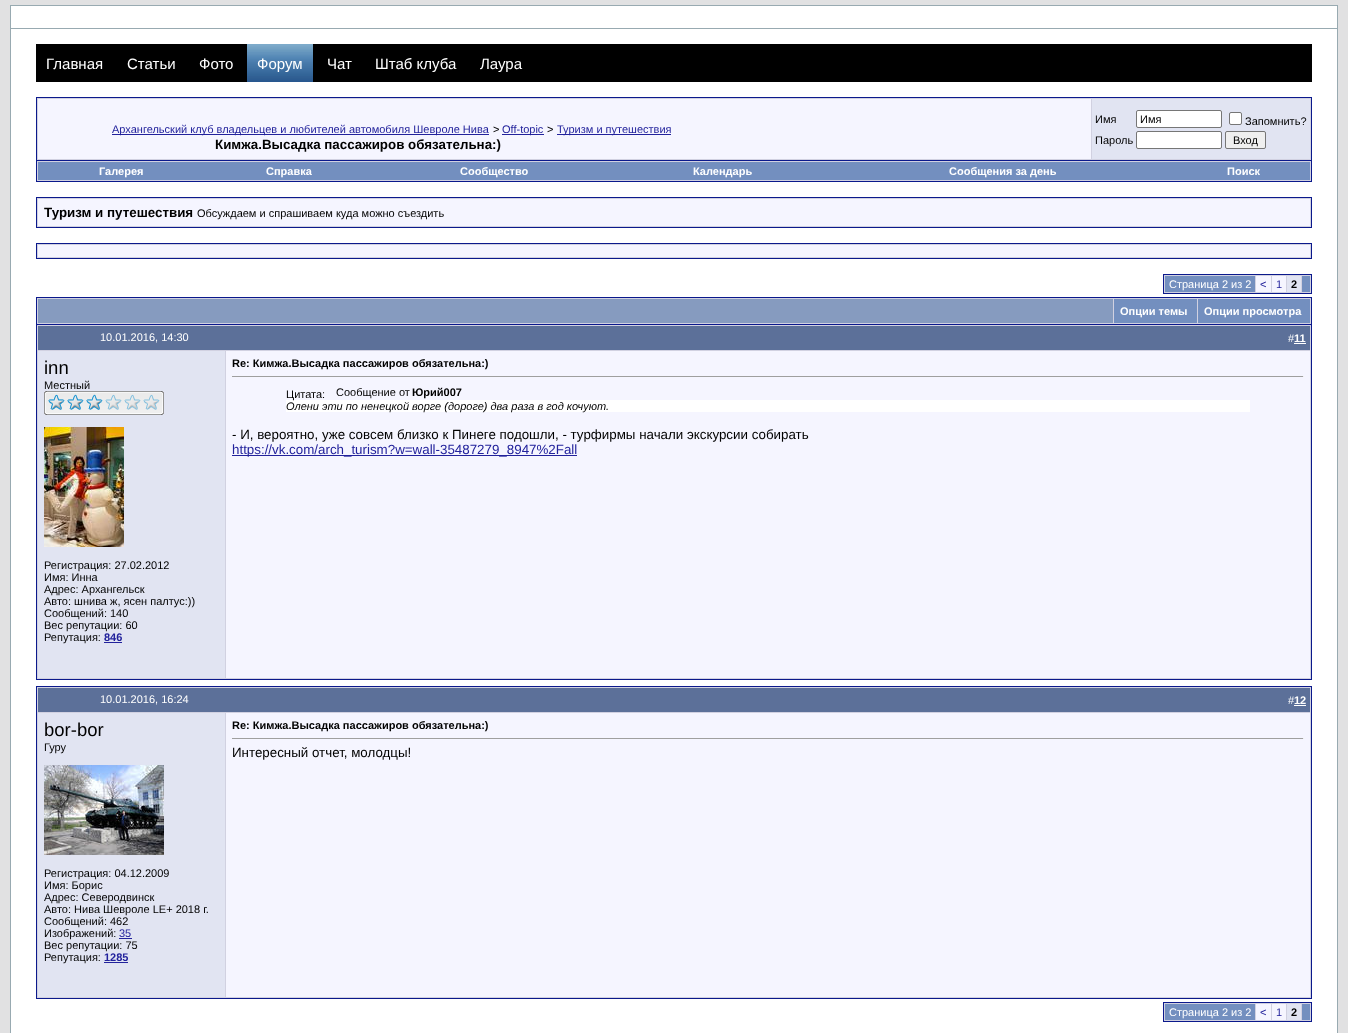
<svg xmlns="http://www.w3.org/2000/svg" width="1348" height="1033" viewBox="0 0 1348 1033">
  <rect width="100%" height="100%" fill="rgb(225,225,226)"/>
  <rect x="10.5" y="5.5" width="1327" height="23" fill="rgb(255,255,255)" stroke="rgb(152,170,177)"/>
  <rect x="11" y="29" width="1326" height="1004" fill="rgb(255,255,255)"/>
  <rect x="1337" y="29" width="1" height="1004" fill="rgb(152,170,177)"/>
  <rect x="10" y="29" width="1" height="1004" fill="rgb(152,170,177)"/>
  <rect x="36" y="44" width="1276" height="38" fill="rgb(0,0,0)"/>
  <g font-family="Liberation Sans" font-size="15" fill="rgb(255,255,255)">
    <text x="46" y="69">Главная</text>
    <text x="127" y="69">Статьи</text>
    <text x="199" y="69">Фото</text>
  </g>
  <image x="247" y="44" width="66" height="38" href="pic1.png"/>
  <g font-family="Liberation Sans" font-size="15" fill="rgb(255,255,255)">
    <text x="257" y="69">Форум</text>
    <text x="327" y="69">Чат</text>
    <text x="375" y="69">Штаб клуба</text>
    <text x="480" y="69">Лаура</text>
  </g>
  <rect x="36.5" y="97.5" width="1275" height="63" fill="rgb(209,209,225)" stroke="rgb(11,25,140)"/>
  <rect x="38" y="99" width="1053" height="60" fill="rgb(245,245,255)"/>
  <rect x="112" y="134" width="377" height="1" fill="rgb(34,34,156)"/>
  <text x="112" y="133" font-family="Liberation Sans" font-size="11" fill="rgb(34,34,156)">Архангельский клуб владельцев и любителей автомобиля Шевроле Нива</text>
  <text x="493" y="133" font-family="Liberation Sans" font-size="11" fill="rgb(0,0,0)">&gt;</text>
  <rect x="502" y="134" width="42" height="1" fill="rgb(34,34,156)"/>
  <text x="502" y="133" font-family="Liberation Sans" font-size="11" fill="rgb(34,34,156)">Off-topic</text>
  <text x="547" y="133" font-family="Liberation Sans" font-size="11" fill="rgb(0,0,0)">&gt;</text>
  <rect x="557" y="134" width="114" height="1" fill="rgb(34,34,156)"/>
  <text x="557" y="133" font-family="Liberation Sans" font-size="11" fill="rgb(34,34,156)">Туризм и путешествия</text>
  <text x="215" y="149" font-family="Liberation Sans" font-size="13.35" font-weight="bold" fill="rgb(0,0,0)">Кимжа.Высадка пассажиров обязательна:)</text>
  <rect x="1092" y="99" width="218" height="60" fill="rgb(225,228,242)"/>
  <text x="1095" y="123" font-family="Liberation Sans" font-size="11" fill="rgb(0,0,0)">Имя</text>
  <rect x="1136.5" y="110.5" width="85" height="17" rx="1.5" fill="rgb(255,255,255)" stroke="rgb(118,118,118)"/>
  <text x="1140" y="123" font-family="Liberation Sans" font-size="11" fill="rgb(0,0,0)">Имя</text>
  <rect x="1229.5" y="112.5" width="12" height="12" rx="1.5" fill="rgb(255,255,255)" stroke="rgb(118,118,118)"/>
  <g font-family="Liberation Sans" font-size="11" fill="rgb(0,0,0)">
    <text x="1245" y="125">Запомнить?</text>
    <text x="1095" y="144">Пароль</text>
  </g>
  <rect x="1136.5" y="131.5" width="85" height="17" rx="1.5" fill="rgb(255,255,255)" stroke="rgb(118,118,118)"/>
  <rect x="1225.5" y="131.5" width="40" height="17" rx="1.5" fill="rgb(239,239,239)" stroke="rgb(118,118,118)"/>
  <text x="1233" y="144" font-family="Liberation Sans" font-size="11" fill="rgb(0,0,0)">Вход</text>
  <rect x="37" y="161" width="1274" height="20" fill="rgb(209,209,225)"/>
  <rect x="1311" y="161" width="1" height="21" fill="rgb(11,25,140)"/>
  <rect x="36" y="181" width="1276" height="1" fill="rgb(11,25,140)"/>
  <rect x="36" y="161" width="1" height="21" fill="rgb(11,25,140)"/>
  <rect x="38" y="162" width="1272" height="18" fill="rgb(115,143,191)"/>
  <g font-family="Liberation Sans" font-size="11" font-weight="bold" fill="rgb(255,255,255)">
    <text x="99" y="175">Галерея</text>
    <text x="266" y="175">Справка</text>
    <text x="460" y="175">Сообщество</text>
    <text x="693" y="175">Календарь</text>
    <text x="949" y="175">Сообщения за день</text>
    <text x="1227" y="175">Поиск</text>
  </g>
  <rect x="36.5" y="197.5" width="1275" height="30" fill="rgb(209,209,225)" stroke="rgb(11,25,140)"/>
  <rect x="38" y="199" width="1272" height="27" fill="rgb(245,245,255)"/>
  <text x="44" y="217" font-family="Liberation Sans" font-size="13.35" font-weight="bold" fill="rgb(0,0,0)">Туризм и путешествия</text>
  <text x="197" y="217" font-family="Liberation Sans" font-size="11" fill="rgb(0,0,0)">Обсуждаем и спрашиваем куда можно съездить</text>
  <rect x="36.5" y="243.5" width="1275" height="15" fill="rgb(209,209,225)" stroke="rgb(11,25,140)"/>
  <rect x="38" y="245" width="1272" height="12" fill="rgb(245,245,255)"/>
  <rect x="1163.5" y="274.5" width="148" height="19" fill="rgb(209,209,225)" stroke="rgb(11,25,140)"/>
  <rect x="1165" y="276" width="90" height="16" fill="rgb(115,143,191)"/>
  <text x="1169" y="288" font-family="Liberation Sans" font-size="11" fill="rgb(255,255,255)">Страница 2 из 2</text>
  <rect x="1256" y="276" width="15" height="16" fill="rgb(245,245,255)"/>
  <text x="1260" y="288" font-family="Liberation Sans" font-size="11" fill="rgb(34,34,156)">&lt;</text>
  <rect x="1272" y="276" width="14" height="16" fill="rgb(245,245,255)"/>
  <text x="1276" y="288" font-family="Liberation Sans" font-size="11" fill="rgb(34,34,156)">1</text>
  <rect x="1287" y="276" width="14" height="16" fill="rgb(225,228,242)"/>
  <text x="1291" y="288" font-family="Liberation Sans" font-size="11" font-weight="bold" fill="rgb(0,0,0)">2</text>
  <rect x="1302" y="276" width="8" height="16" fill="rgb(115,143,191)"/>
  <rect x="37" y="298" width="1274" height="26" fill="rgb(209,209,225)"/>
  <rect x="36" y="297" width="1276" height="1" fill="rgb(11,25,140)"/>
  <rect x="1311" y="297" width="1" height="27" fill="rgb(11,25,140)"/>
  <rect x="36" y="297" width="1" height="27" fill="rgb(11,25,140)"/>
  <rect x="38" y="299" width="1075" height="24" fill="rgb(134,155,191)"/>
  <rect x="1114" y="299" width="83" height="24" fill="rgb(115,143,191)"/>
  <text x="1120" y="315" font-family="Liberation Sans" font-size="11" font-weight="bold" fill="rgb(255,255,255)">Опции темы</text>
  <rect x="1198" y="299" width="112" height="24" fill="rgb(115,143,191)"/>
  <text x="1204" y="315" font-family="Liberation Sans" font-size="11" font-weight="bold" fill="rgb(255,255,255)">Опции просмотра</text>
  <rect x="36.5" y="324.5" width="1275" height="355" fill="none" stroke="rgb(11,25,140)"/>
  <rect x="38" y="326" width="1272" height="24" fill="rgb(92,112,153)"/>
  <rect x="37" y="325" width="1274" height="1" fill="rgb(209,209,225)"/>
  <rect x="37" y="350" width="189" height="1" fill="rgb(209,209,225)"/>
  <rect x="37" y="325" width="1" height="324" fill="rgb(209,209,225)"/>
  <text x="100" y="341" font-family="Liberation Sans" font-size="11" fill="rgb(255,255,255)">10.01.2016, 14:30</text>
  <rect x="1310" y="325" width="1" height="354" fill="rgb(209,209,225)"/>
  <rect x="226" y="350" width="1085" height="1" fill="rgb(209,209,225)"/>
  <text x="1288" y="342" font-family="Liberation Sans" font-size="11" fill="rgb(255,255,255)">#</text>
  <text x="1294" y="342" font-family="Liberation Sans" font-size="11" font-weight="bold" fill="rgb(255,255,255)">11</text>
  <rect x="1294" y="343" width="12" height="1" fill="rgb(255,255,255)"/>
  <rect x="38" y="351" width="187" height="327" fill="rgb(225,228,242)"/>
  <rect x="225" y="351" width="1" height="328" fill="rgb(209,209,225)"/>
  <text x="44" y="374" font-family="Liberation Sans" font-size="18.5" fill="rgb(0,0,0)">inn</text>
  <text x="44" y="389" font-family="Liberation Sans" font-size="11" fill="rgb(0,0,0)">Местный</text>
  <image x="44" y="391" width="120" height="24" href="pic2.png"/>
  <image x="44" y="427" width="80" height="120" href="pic3.png"/>
  <g font-family="Liberation Sans" font-size="11" fill="rgb(0,0,0)">
    <text>
      <tspan x="44" y="569">Регистрация: 27.02.2012</tspan>
      <tspan x="44" y="581">Имя: Инна</tspan>
      <tspan x="44" y="593">Адрес: Архангельск</tspan>
      <tspan x="44" y="605">Авто: шнива ж, ясен палтус:))</tspan>
      <tspan x="44" y="617">Сообщений: 140</tspan>
      <tspan x="44" y="629">Вес репутации: 60</tspan>
      <tspan x="44" y="641">Репутация:</tspan>
    </text>
  </g>
  <text x="104" y="641" font-family="Liberation Sans" font-size="11" font-weight="bold" fill="rgb(34,34,156)">846</text>
  <rect x="104" y="642" width="18" height="1" fill="rgb(34,34,156)"/>
  <rect x="226" y="351" width="1084" height="327" fill="rgb(245,245,255)"/>
  <text x="232" y="367" font-family="Liberation Sans" font-size="11" font-weight="bold" fill="rgb(0,0,0)">Re: Кимжа.Высадка пассажиров обязательна:)</text>
  <rect x="232" y="376" width="1072" height="1" fill="rgb(159,159,159)"/>
  <rect x="1303" y="376" width="1" height="1" fill="rgb(238,238,238)"/>
  <rect x="286" y="400" width="964" height="12" fill="rgb(255,255,255)"/>
  <g font-family="Liberation Sans" font-size="11" fill="rgb(0,0,0)">
    <text x="286" y="398">Цитата:</text>
    <text x="336" y="396">Сообщение от</text>
  </g>
  <text x="412" y="396" font-family="Liberation Sans" font-size="11" font-weight="bold" fill="rgb(0,0,0)">Юрий007</text>
  <text x="286" y="410" font-family="Liberation Sans" font-size="11" font-style="italic" fill="rgb(0,0,0)">Олени эти по ненецкой ворге (дороге) два раза в год кочуют.</text>
  <text x="232" y="439" font-family="Liberation Sans" font-size="13.35" fill="rgb(0,0,0)">- И, вероятно, уже совсем близко к Пинеге подошли, - турфирмы начали экскурсии собирать</text>
  <rect x="232" y="455" width="345" height="1" fill="rgb(34,34,156)"/>
  <text x="232" y="454" font-family="Liberation Sans" font-size="13.35" fill="rgb(34,34,156)">https://vk.com/arch_turism?w=wall-35487279_8947%2Fall</text>
  <rect x="37" y="678" width="1274" height="1" fill="rgb(209,209,225)"/>
  <rect x="37" y="649" width="1" height="30" fill="rgb(209,209,225)"/>
  <rect x="36.5" y="686.5" width="1275" height="312" fill="none" stroke="rgb(11,25,140)"/>
  <rect x="38" y="688" width="1272" height="24" fill="rgb(92,112,153)"/>
  <rect x="37" y="687" width="1274" height="1" fill="rgb(209,209,225)"/>
  <rect x="37" y="712" width="189" height="1" fill="rgb(209,209,225)"/>
  <rect x="37" y="687" width="1" height="282" fill="rgb(209,209,225)"/>
  <text x="100" y="703" font-family="Liberation Sans" font-size="11" fill="rgb(255,255,255)">10.01.2016, 16:24</text>
  <rect x="1310" y="687" width="1" height="311" fill="rgb(209,209,225)"/>
  <rect x="226" y="712" width="1085" height="1" fill="rgb(209,209,225)"/>
  <text x="1288" y="704" font-family="Liberation Sans" font-size="11" fill="rgb(255,255,255)">#</text>
  <text x="1294" y="704" font-family="Liberation Sans" font-size="11" font-weight="bold" fill="rgb(255,255,255)">12</text>
  <rect x="1294" y="705" width="12" height="1" fill="rgb(255,255,255)"/>
  <rect x="38" y="713" width="187" height="284" fill="rgb(225,228,242)"/>
  <rect x="225" y="713" width="1" height="285" fill="rgb(209,209,225)"/>
  <text x="44" y="736" font-family="Liberation Sans" font-size="18.5" fill="rgb(0,0,0)">bor-bor</text>
  <text x="44" y="751" font-family="Liberation Sans" font-size="11" fill="rgb(0,0,0)">Гуру</text>
  <image x="44" y="765" width="120" height="90" href="pic4.png"/>
  <g font-family="Liberation Sans" font-size="11" fill="rgb(0,0,0)">
    <text>
      <tspan x="44" y="877">Регистрация: 04.12.2009</tspan>
      <tspan x="44" y="889">Имя: Борис</tspan>
      <tspan x="44" y="901">Адрес: Северодвинск</tspan>
      <tspan x="44" y="913">Авто: Нива Шевроле LE+ 2018 г.</tspan>
      <tspan x="44" y="925">Сообщений: 462</tspan>
      <tspan x="44" y="937">Изображений:</tspan>
    </text>
  </g>
  <text x="119" y="937" font-family="Liberation Sans" font-size="11" fill="rgb(34,34,156)">35</text>
  <rect x="119" y="938" width="13" height="1" fill="rgb(34,34,156)"/>
  <g font-family="Liberation Sans" font-size="11" fill="rgb(0,0,0)">
    <text>
      <tspan x="44" y="949">Вес репутации: 75</tspan>
      <tspan x="44" y="961">Репутация:</tspan>
    </text>
  </g>
  <text x="104" y="961" font-family="Liberation Sans" font-size="11" font-weight="bold" fill="rgb(34,34,156)">1285</text>
  <rect x="104" y="962" width="24" height="1" fill="rgb(34,34,156)"/>
  <rect x="226" y="713" width="1084" height="284" fill="rgb(245,245,255)"/>
  <text x="232" y="729" font-family="Liberation Sans" font-size="11" font-weight="bold" fill="rgb(0,0,0)">Re: Кимжа.Высадка пассажиров обязательна:)</text>
  <rect x="232" y="738" width="1072" height="1" fill="rgb(159,159,159)"/>
  <rect x="1303" y="738" width="1" height="1" fill="rgb(238,238,238)"/>
  <text x="232" y="757" font-family="Liberation Sans" font-size="13.35" fill="rgb(0,0,0)">Интересный отчет, молодцы!</text>
  <rect x="37" y="997" width="1274" height="1" fill="rgb(209,209,225)"/>
  <rect x="37" y="969" width="1" height="29" fill="rgb(209,209,225)"/>
  <rect x="1163.5" y="1002.5" width="148" height="19" fill="rgb(209,209,225)" stroke="rgb(11,25,140)"/>
  <rect x="1165" y="1004" width="90" height="16" fill="rgb(115,143,191)"/>
  <text x="1169" y="1016" font-family="Liberation Sans" font-size="11" fill="rgb(255,255,255)">Страница 2 из 2</text>
  <rect x="1256" y="1004" width="15" height="16" fill="rgb(245,245,255)"/>
  <text x="1260" y="1016" font-family="Liberation Sans" font-size="11" fill="rgb(34,34,156)">&lt;</text>
  <rect x="1272" y="1004" width="14" height="16" fill="rgb(245,245,255)"/>
  <text x="1276" y="1016" font-family="Liberation Sans" font-size="11" fill="rgb(34,34,156)">1</text>
  <rect x="1287" y="1004" width="14" height="16" fill="rgb(225,228,242)"/>
  <text x="1291" y="1016" font-family="Liberation Sans" font-size="11" font-weight="bold" fill="rgb(0,0,0)">2</text>
  <rect x="1302" y="1004" width="8" height="16" fill="rgb(115,143,191)"/>
</svg>
